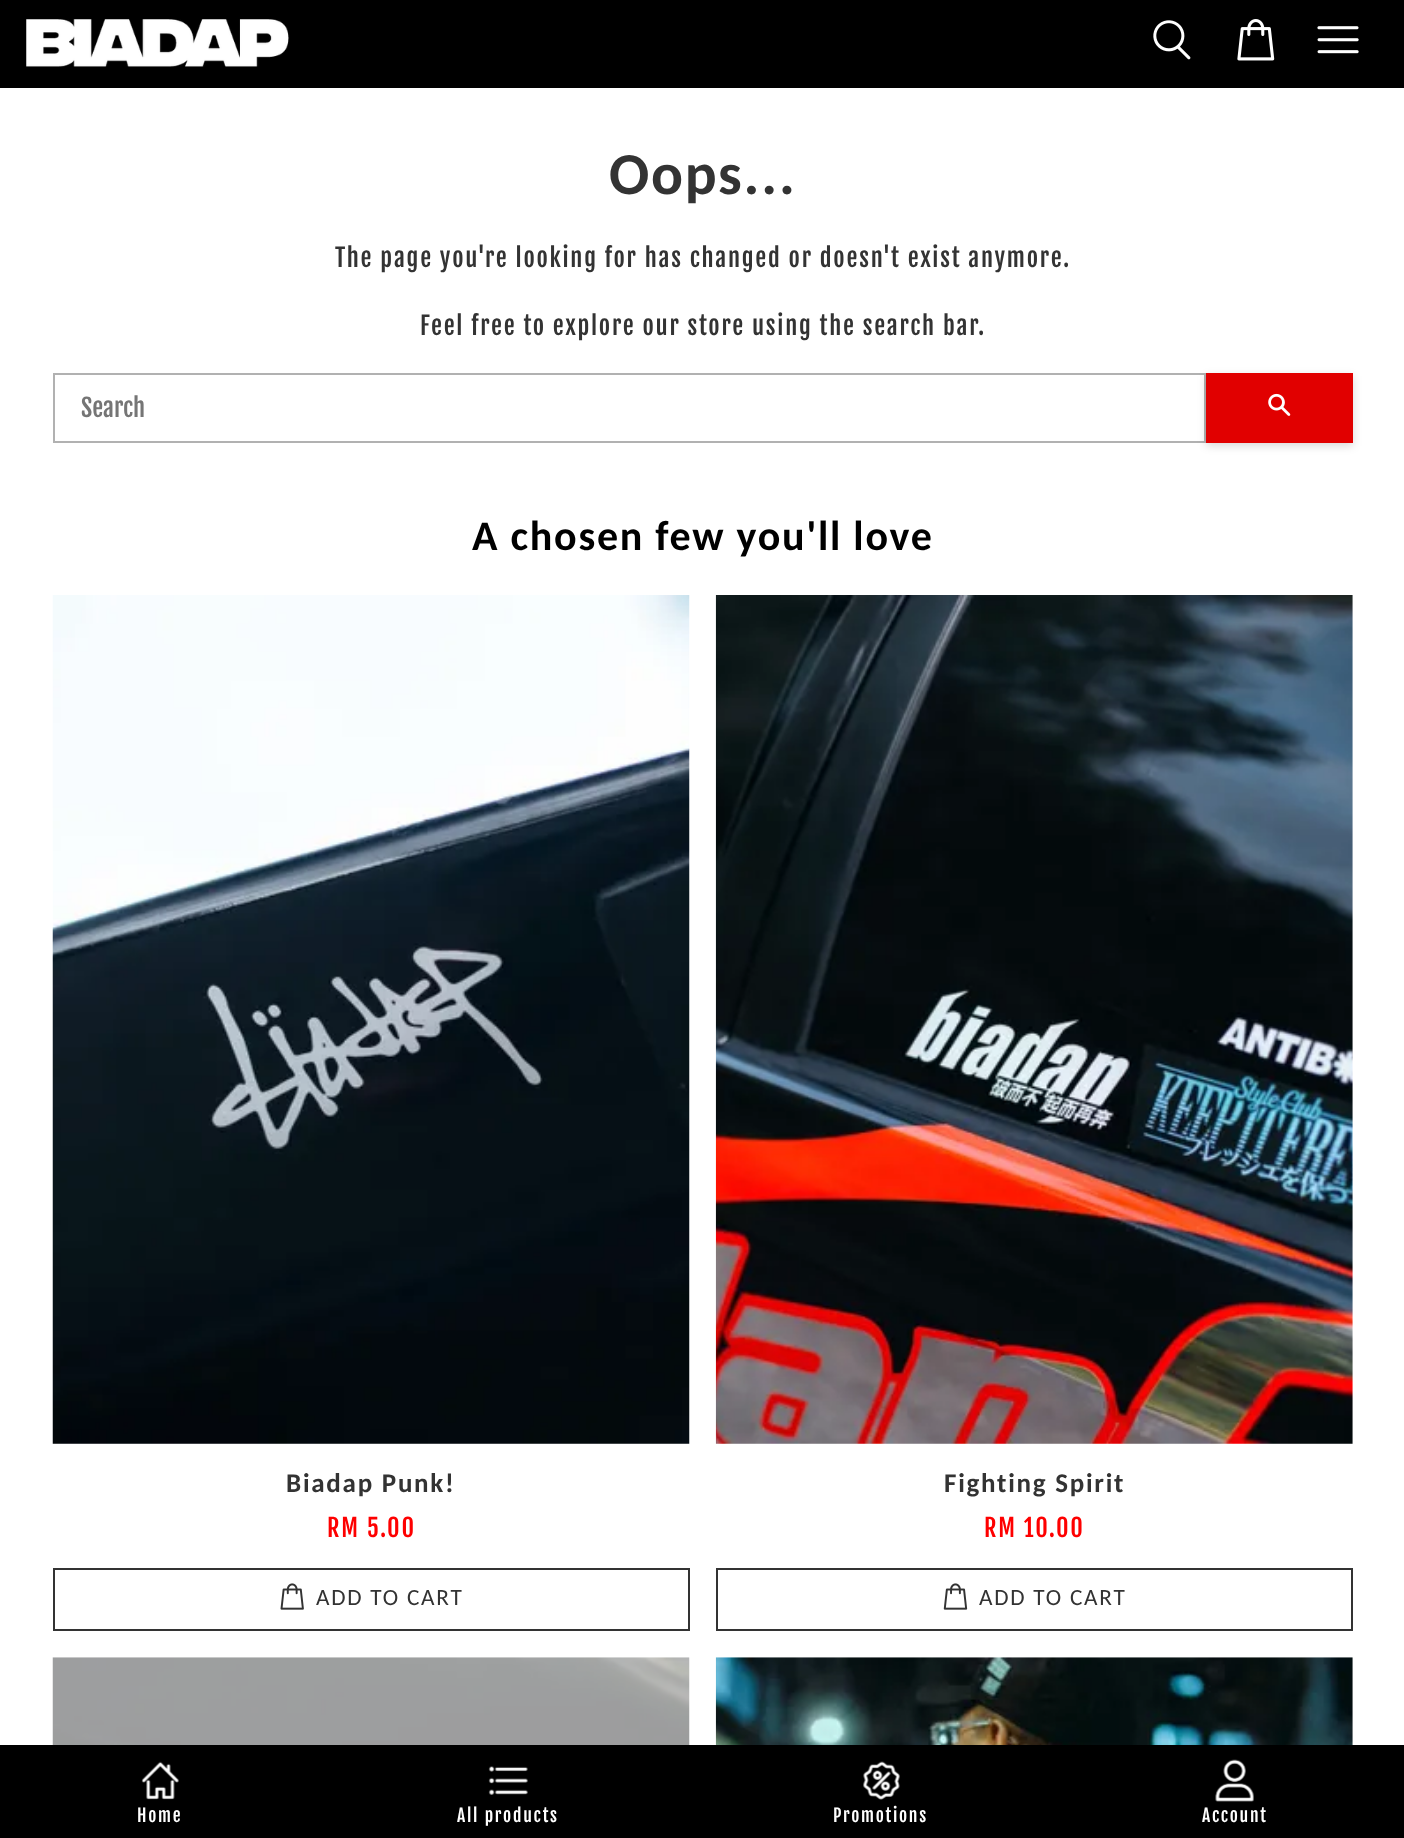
<svg xmlns="http://www.w3.org/2000/svg" width="1404" height="1838" viewBox="0 0 1404 1838">
  <rect width="100%" height="100%" fill="rgb(255,255,255)"/>
  <rect x="0" y="0" width="1404" height="88" fill="rgb(0,0,0)"/>
  <image x="26" y="19" width="263" height="48" href="pic1.png"/>
  <image x="1153" y="20" width="38" height="40" href="pic2.png"/>
  <image x="1237" y="19" width="38" height="42" href="pic3.png"/>
  <image x="1317" y="26" width="42" height="28" href="pic4.png"/>
  <text x="609" y="194" font-family="Carlito" font-size="59.5" font-weight="bold" letter-spacing="1.75" fill="rgb(51,51,51)">Oops...</text>
  <g font-family="Fjalla One" font-size="24.5" letter-spacing="1.75" fill="rgb(51,51,51)">
    <text x="335" y="267">The page you're looking for has changed or doesn't exist anymore.</text>
    <text x="420" y="335">Feel free to explore our store using the search bar.</text>
  </g>
  <rect x="54" y="374" width="1151" height="68" fill="none" stroke="rgb(177,177,177)" stroke-width="2"/>
  <text x="81" y="417" font-family="Fjalla One" font-size="24.5" fill="rgb(117,117,117)">Search</text>
  <rect x="1206" y="376" width="147" height="70" fill="rgba(0,0,0,0.15)" filter="blur(4.5px)"/>
  <rect x="1206" y="373" width="147" height="70" fill="rgb(225,0,0)"/>
  <image x="1268" y="393" width="23" height="23" href="pic5.png"/>
  <text x="472" y="550" font-family="Carlito" font-size="42" font-weight="bold" letter-spacing="1.75" fill="rgb(0,0,0)">A chosen few you'll love</text>
  <image x="52" y="595" width="638" height="849" href="pic6.png"/>
  <text x="286" y="1492" font-family="Carlito" font-size="27" font-weight="bold" letter-spacing="1.75" fill="rgb(51,51,51)">Biadap Punk!</text>
  <text x="327" y="1537" font-family="Fjalla One" font-size="24.25" letter-spacing="1.75" fill="rgb(254,0,0)">RM 5.00</text>
  <rect x="54" y="1569" width="635" height="61" fill="none" stroke="rgb(51,51,51)" stroke-width="2"/>
  <image x="280" y="1583" width="24" height="27" href="pic7.png"/>
  <text x="316" y="1605" font-family="Carlito" font-size="23.25" letter-spacing="1.75" fill="rgb(51,51,51)">ADD TO CART</text>
  <image x="715" y="595" width="638" height="849" href="pic8.png"/>
  <text x="944" y="1492" font-family="Carlito" font-size="27" font-weight="bold" letter-spacing="1.75" fill="rgb(51,51,51)">Fighting Spirit</text>
  <text x="984" y="1537" font-family="Fjalla One" font-size="24.25" letter-spacing="1.75" fill="rgb(254,0,0)">RM 10.00</text>
  <rect x="717" y="1569" width="635" height="61" fill="none" stroke="rgb(51,51,51)" stroke-width="2"/>
  <image x="943" y="1583" width="25" height="27" href="pic9.png"/>
  <text x="979" y="1605" font-family="Carlito" font-size="23.25" letter-spacing="1.75" fill="rgb(51,51,51)">ADD TO CART</text>
  <image x="52" y="1657" width="638" height="88" href="pic10.png"/>
  <image x="715" y="1657" width="638" height="88" href="pic11.png"/>
  <rect x="0" y="1745" width="1404" height="93" fill="rgb(0,0,0)"/>
  <image x="141" y="1761" width="38" height="39" href="pic12.png"/>
  <text x="137" y="1822" font-family="Fjalla One" font-size="17.5" letter-spacing="1.75" fill="rgb(255,255,255)">Home</text>
  <image x="488" y="1766" width="40" height="29" href="pic13.png"/>
  <text x="457" y="1822" font-family="Fjalla One" font-size="17.5" letter-spacing="1.75" fill="rgb(255,255,255)">All products</text>
  <image x="863" y="1761" width="37" height="39" href="pic14.png"/>
  <text x="833" y="1822" font-family="Fjalla One" font-size="17.5" letter-spacing="1.75" fill="rgb(255,255,255)">Promotions</text>
  <image x="1215" y="1759" width="39" height="43" href="pic15.png"/>
  <text x="1202" y="1822" font-family="Fjalla One" font-size="17.5" letter-spacing="1.75" fill="rgb(255,255,255)">Account</text>
</svg>
